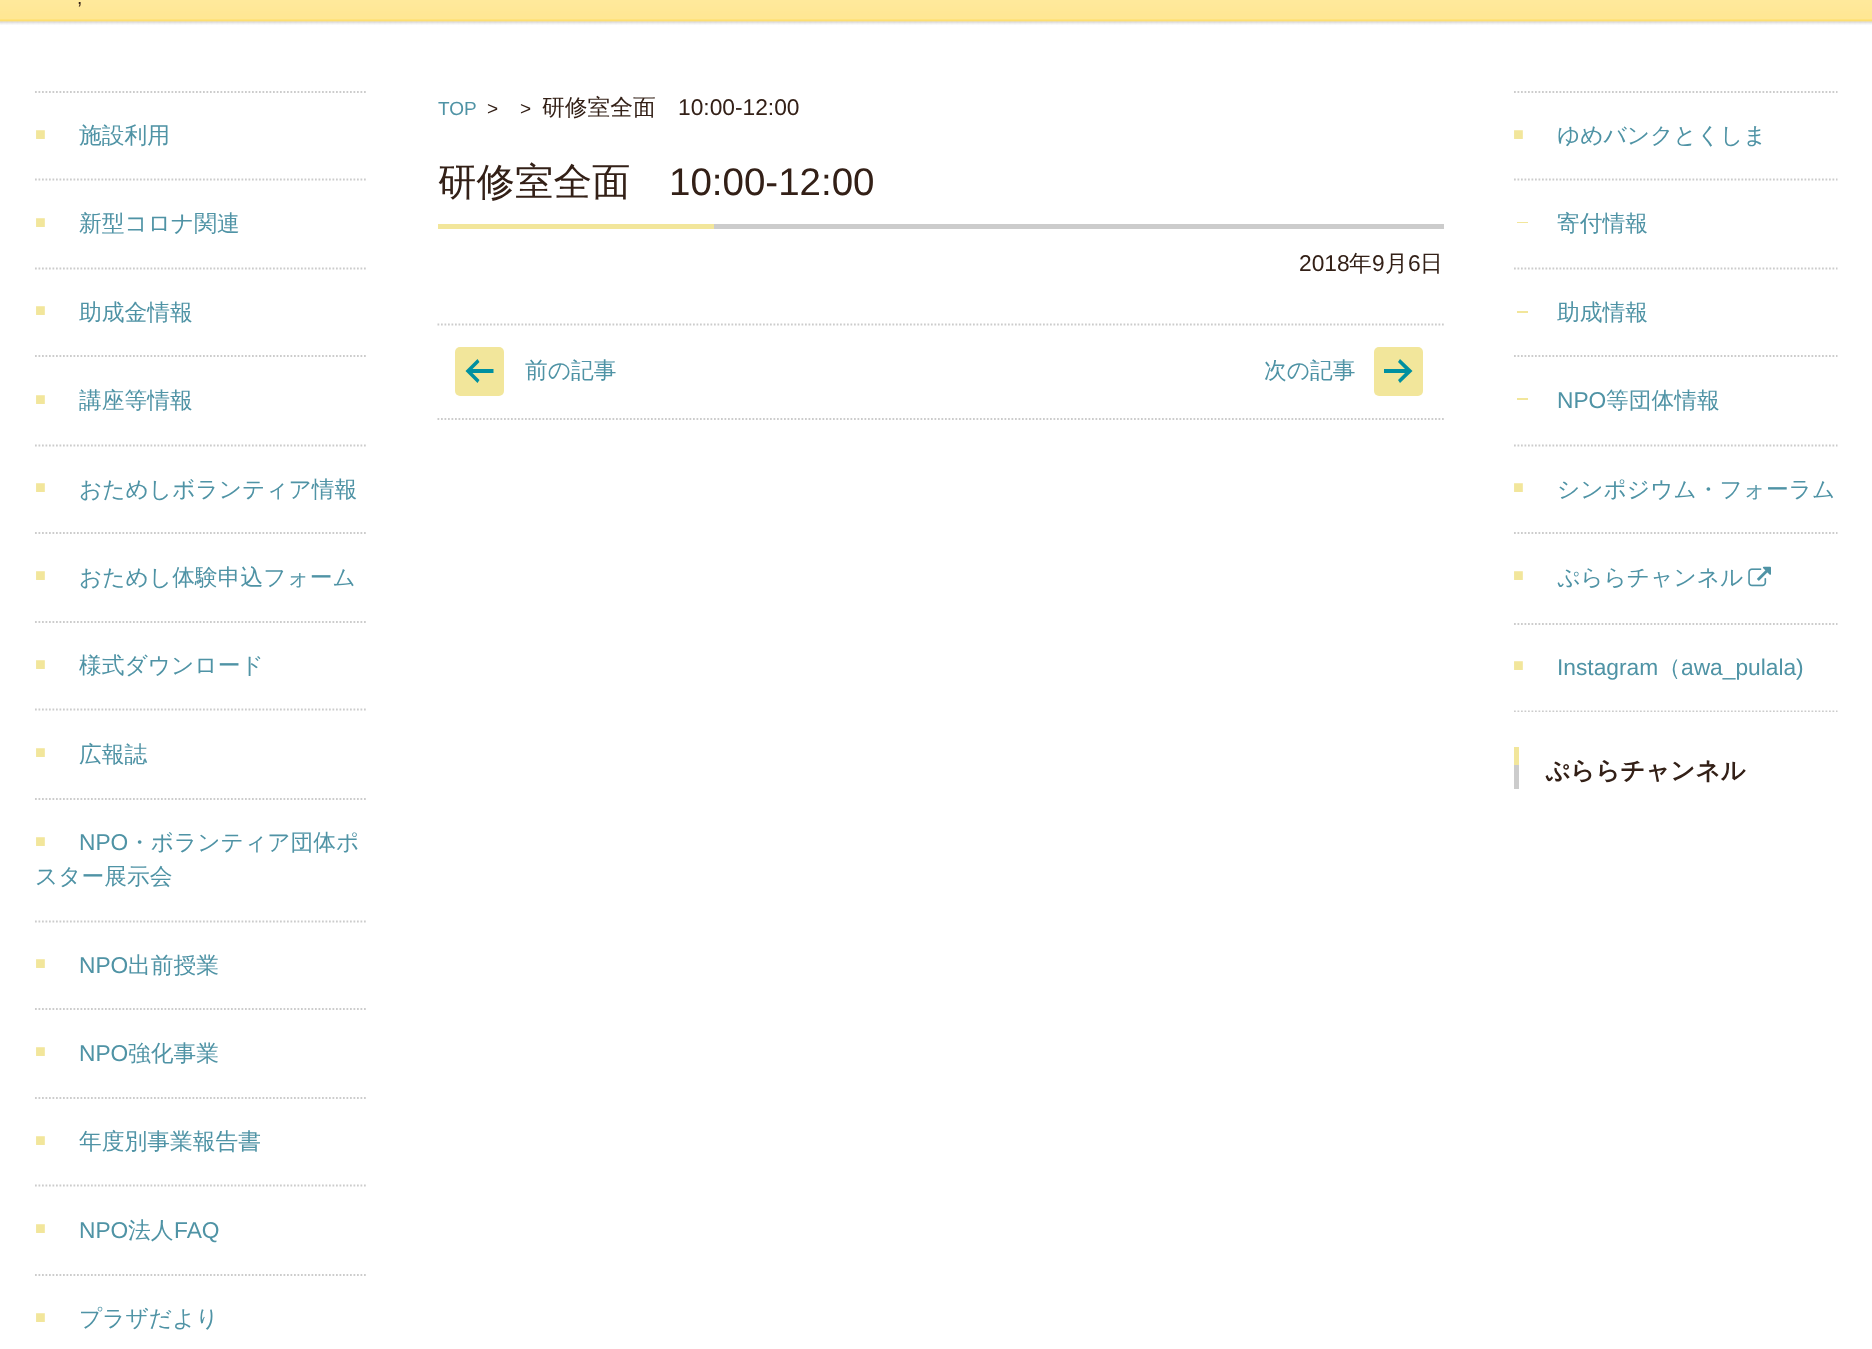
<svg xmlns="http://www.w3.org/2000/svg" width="1872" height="1349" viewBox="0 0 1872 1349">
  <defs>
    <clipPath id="clip1"><rect x="1514" y="91" width="324" height="621"/></clipPath>
  </defs>
  <rect width="100%" height="100%" fill="rgb(255,255,255)"/>
  <image x="0" y="0" width="1872" height="25" href="pic1.png"/>
  <text x="77" y="4" font-family="Liberation Sans" font-size="19" fill="rgb(51,32,23)">,</text>
  <path d="M35 92H367.5" fill="none" stroke="rgb(204,204,204)" stroke-width="1.8" stroke-dasharray="1.75 1.75"/>
  <path d="M35 179.5H367.5" fill="none" stroke="rgb(204,204,204)" stroke-width="1.8" stroke-dasharray="1.75 1.75"/>
  <text x="35" y="140" font-family="Liberation Sans" font-size="18" fill="rgb(242,230,155)">■</text>
  <text x="79" y="143" font-family="WenQuanYi Zen Hei" font-size="22.75" font-weight="500" fill="rgb(79,147,165)">施設利用</text>
  <path d="M35 268.5H367.5" fill="none" stroke="rgb(204,204,204)" stroke-width="1.8" stroke-dasharray="1.75 1.75"/>
  <text x="35" y="228" font-family="Liberation Sans" font-size="18" fill="rgb(242,230,155)">■</text>
  <text x="79" y="231" font-family="WenQuanYi Zen Hei" font-size="22.75" font-weight="500" fill="rgb(79,147,165)">新型コロナ関連</text>
  <path d="M35 356H367.5" fill="none" stroke="rgb(204,204,204)" stroke-width="1.8" stroke-dasharray="1.75 1.75"/>
  <text x="35" y="316" font-family="Liberation Sans" font-size="18" fill="rgb(242,230,155)">■</text>
  <text x="79" y="320" font-family="WenQuanYi Zen Hei" font-size="22.75" font-weight="500" fill="rgb(79,147,165)">助成金情報</text>
  <path d="M35 445.5H367.5" fill="none" stroke="rgb(204,204,204)" stroke-width="1.8" stroke-dasharray="1.75 1.75"/>
  <text x="35" y="405" font-family="Liberation Sans" font-size="18" fill="rgb(242,230,155)">■</text>
  <text x="79" y="408" font-family="WenQuanYi Zen Hei" font-size="22.75" font-weight="500" fill="rgb(79,147,165)">講座等情報</text>
  <path d="M35 533H367.5" fill="none" stroke="rgb(204,204,204)" stroke-width="1.8" stroke-dasharray="1.75 1.75"/>
  <text x="35" y="493" font-family="Liberation Sans" font-size="18" fill="rgb(242,230,155)">■</text>
  <text x="79" y="497" font-family="WenQuanYi Zen Hei" font-size="22.75" font-weight="500" fill="rgb(79,147,165)">おためしボランティア情報</text>
  <path d="M35 622H367.5" fill="none" stroke="rgb(204,204,204)" stroke-width="1.8" stroke-dasharray="1.75 1.75"/>
  <text x="35" y="581" font-family="Liberation Sans" font-size="18" fill="rgb(242,230,155)">■</text>
  <text x="79" y="585" font-family="WenQuanYi Zen Hei" font-size="22.75" font-weight="500" fill="rgb(79,147,165)">おためし体験申込フォーム</text>
  <path d="M35 709.5H367.5" fill="none" stroke="rgb(204,204,204)" stroke-width="1.8" stroke-dasharray="1.75 1.75"/>
  <text x="35" y="670" font-family="Liberation Sans" font-size="18" fill="rgb(242,230,155)">■</text>
  <text x="79" y="673" font-family="WenQuanYi Zen Hei" font-size="22.75" font-weight="500" fill="rgb(79,147,165)">様式ダウンロード</text>
  <path d="M35 799H367.5" fill="none" stroke="rgb(204,204,204)" stroke-width="1.8" stroke-dasharray="1.75 1.75"/>
  <text x="35" y="758" font-family="Liberation Sans" font-size="18" fill="rgb(242,230,155)">■</text>
  <text x="79" y="762" font-family="WenQuanYi Zen Hei" font-size="22.75" font-weight="500" fill="rgb(79,147,165)">広報誌</text>
  <path d="M35 921.5H367.5" fill="none" stroke="rgb(204,204,204)" stroke-width="1.8" stroke-dasharray="1.75 1.75"/>
  <text x="35" y="847" font-family="Liberation Sans" font-size="18" fill="rgb(242,230,155)">■</text>
  <text x="79" y="850" font-family="Liberation Sans" font-size="22.75" fill="rgb(79,147,165)">NPO</text>
  <g font-family="WenQuanYi Zen Hei" font-size="22.75" font-weight="500" fill="rgb(79,147,165)">
    <text x="128" y="850">・ボランティア団体ポ</text>
    <text x="35" y="884">スター展示会</text>
  </g>
  <path d="M35 1009H367.5" fill="none" stroke="rgb(204,204,204)" stroke-width="1.8" stroke-dasharray="1.75 1.75"/>
  <text x="35" y="969" font-family="Liberation Sans" font-size="18" fill="rgb(242,230,155)">■</text>
  <text x="79" y="973" font-family="Liberation Sans" font-size="22.75" fill="rgb(79,147,165)">NPO</text>
  <text x="128" y="973" font-family="WenQuanYi Zen Hei" font-size="22.75" font-weight="500" fill="rgb(79,147,165)">出前授業</text>
  <path d="M35 1098H367.5" fill="none" stroke="rgb(204,204,204)" stroke-width="1.8" stroke-dasharray="1.75 1.75"/>
  <text x="35" y="1057" font-family="Liberation Sans" font-size="18" fill="rgb(242,230,155)">■</text>
  <text x="79" y="1061" font-family="Liberation Sans" font-size="22.75" fill="rgb(79,147,165)">NPO</text>
  <text x="128" y="1061" font-family="WenQuanYi Zen Hei" font-size="22.75" font-weight="500" fill="rgb(79,147,165)">強化事業</text>
  <path d="M35 1185.5H367.5" fill="none" stroke="rgb(204,204,204)" stroke-width="1.8" stroke-dasharray="1.75 1.75"/>
  <text x="35" y="1146" font-family="Liberation Sans" font-size="18" fill="rgb(242,230,155)">■</text>
  <text x="79" y="1149" font-family="WenQuanYi Zen Hei" font-size="22.75" font-weight="500" fill="rgb(79,147,165)">年度別事業報告書</text>
  <path d="M35 1275H367.5" fill="none" stroke="rgb(204,204,204)" stroke-width="1.8" stroke-dasharray="1.75 1.75"/>
  <text x="35" y="1234" font-family="Liberation Sans" font-size="18" fill="rgb(242,230,155)">■</text>
  <text x="79" y="1238" font-family="Liberation Sans" font-size="22.75" fill="rgb(79,147,165)">NPO</text>
  <text x="128" y="1238" font-family="WenQuanYi Zen Hei" font-size="22.75" font-weight="500" fill="rgb(79,147,165)">法人</text>
  <text x="174" y="1238" font-family="Liberation Sans" font-size="22.75" fill="rgb(79,147,165)">FAQ</text>
  <text x="35" y="1323" font-family="Liberation Sans" font-size="18" fill="rgb(242,230,155)">■</text>
  <text x="79" y="1326" font-family="WenQuanYi Zen Hei" font-size="22.75" font-weight="500" fill="rgb(79,147,165)">プラザだより</text>
  <text x="438" y="115" font-family="Liberation Sans" font-size="19" fill="rgb(79,147,165)">TOP</text>
  <g font-family="Liberation Sans" font-size="19" fill="rgb(51,32,23)">
    <text x="487" y="115">&gt;</text>
    <text x="520" y="115">&gt;</text>
  </g>
  <text x="542" y="115" font-family="WenQuanYi Zen Hei" font-size="22.75" font-weight="500" fill="rgb(51,32,23)">研修室全面</text>
  <text x="678" y="115" font-family="Liberation Sans" font-size="22.75" fill="rgb(51,32,23)">10:00-12:00</text>
  <rect x="714" y="224" width="730" height="5" fill="rgb(204,204,204)"/>
  <text x="438" y="195" font-family="WenQuanYi Zen Hei" font-size="38.5" font-weight="500" fill="rgb(51,32,23)">研修室全面</text>
  <text x="669" y="195" font-family="Liberation Sans" font-size="38.5" fill="rgb(51,32,23)">10:00-12:00</text>
  <rect x="438" y="224" width="276" height="5" fill="rgb(242,230,155)"/>
  <text x="1299" y="271" font-family="Liberation Sans" font-size="22.75" fill="rgb(51,32,23)">2018</text>
  <text x="1349" y="271" font-family="WenQuanYi Zen Hei" font-size="22.75" font-weight="500" fill="rgb(51,32,23)">年</text>
  <text x="1372" y="271" font-family="Liberation Sans" font-size="22.75" fill="rgb(51,32,23)">9</text>
  <text x="1385" y="271" font-family="WenQuanYi Zen Hei" font-size="22.75" font-weight="500" fill="rgb(51,32,23)">月</text>
  <text x="1408" y="271" font-family="Liberation Sans" font-size="22.75" fill="rgb(51,32,23)">6</text>
  <text x="1420" y="271" font-family="WenQuanYi Zen Hei" font-size="22.75" font-weight="500" fill="rgb(51,32,23)">日</text>
  <path d="M437.5 324.5H1444" fill="none" stroke="rgb(204,204,204)" stroke-width="1.8" stroke-dasharray="1.75 1.75"/>
  <path d="M437.5 419H1444" fill="none" stroke="rgb(204,204,204)" stroke-width="1.8" stroke-dasharray="1.75 1.75"/>
  <rect x="455" y="347" width="49" height="49" rx="5" fill="rgb(242,230,155)"/>
  <path d="M493.5 369V373H472.5L479.5 380L477.5 383L465.5 371L477.5 359L479.5 362L472.5 369Z" fill="rgb(0,144,160)"/>
  <g font-family="WenQuanYi Zen Hei" font-size="22.75" font-weight="500" fill="rgb(79,147,165)">
    <text x="525" y="378">前の記事</text>
    <text x="1264" y="378">次の記事</text>
  </g>
  <rect x="1374" y="347" width="49" height="49" rx="5" fill="rgb(242,230,155)"/>
  <path d="M1384 373V369H1405L1398 362L1400 359L1412.5 371L1400 383L1398 380L1405 373Z" fill="rgb(0,144,160)"/>
  <path d="M1514 92H1837.5" fill="none" stroke="rgb(204,204,204)" stroke-width="1.8" stroke-dasharray="1.75 1.75"/>
  <path d="M1514 445.5H1837.5" fill="none" stroke="rgb(204,204,204)" stroke-width="1.8" stroke-dasharray="1.75 1.75"/>
  <text x="1513" y="140" font-family="Liberation Sans" font-size="18" fill="rgb(242,230,155)">■</text>
  <text x="1557" y="143" font-family="WenQuanYi Zen Hei" font-size="22.75" font-weight="500" fill="rgb(79,147,165)">ゆめバンクとくしま</text>
  <path d="M1514 179.5H1837.5" fill="none" stroke="rgb(204,204,204)" stroke-width="1.8" stroke-dasharray="1.75 1.75"/>
  <path d="M1514 268.5H1837.5" fill="none" stroke="rgb(204,204,204)" stroke-width="1.8" stroke-dasharray="1.75 1.75"/>
  <rect x="1517" y="222" width="11" height="1" fill="rgb(242,230,155)"/>
  <text x="1557" y="231" font-family="WenQuanYi Zen Hei" font-size="22.75" font-weight="500" fill="rgb(79,147,165)">寄付情報</text>
  <path d="M1514 356H1837.5" fill="none" stroke="rgb(204,204,204)" stroke-width="1.8" stroke-dasharray="1.75 1.75"/>
  <rect x="1517" y="311" width="11" height="2" fill="rgb(242,230,155)"/>
  <text x="1557" y="320" font-family="WenQuanYi Zen Hei" font-size="22.75" font-weight="500" fill="rgb(79,147,165)">助成情報</text>
  <rect x="1517" y="398" width="11" height="2" fill="rgb(242,230,155)"/>
  <text x="1557" y="408" font-family="Liberation Sans" font-size="22.75" fill="rgb(79,147,165)">NPO</text>
  <text x="1606" y="408" font-family="WenQuanYi Zen Hei" font-size="22.75" font-weight="500" fill="rgb(79,147,165)">等団体情報</text>
  <path d="M1514 533H1837.5" fill="none" stroke="rgb(204,204,204)" stroke-width="1.8" stroke-dasharray="1.75 1.75"/>
  <text x="1513" y="493" font-family="Liberation Sans" font-size="18" fill="rgb(242,230,155)">■</text>
  <text x="1557" y="497" font-family="WenQuanYi Zen Hei" font-size="22.75" font-weight="500" fill="rgb(79,147,165)">シンポジウム・フォーラム</text>
  <path d="M1514 624H1837.5" fill="none" stroke="rgb(204,204,204)" stroke-width="1.8" stroke-dasharray="1.75 1.75"/>
  <text x="1513" y="581" font-family="Liberation Sans" font-size="18" fill="rgb(242,230,155)">■</text>
  <text x="1557" y="585" font-family="WenQuanYi Zen Hei" font-size="22.75" font-weight="500" fill="rgb(79,147,165)">ぷららチャンネル</text>
  <image x="1748" y="566" width="23" height="21" href="pic2.png"/>
  <g clip-path="url(#clip1)">
    <path d="M1514 711.5H1837.5" fill="none" stroke="rgb(204,204,204)" stroke-width="1.8" stroke-dasharray="1.75 1.75"/>
  </g>
  <text x="1513" y="671" font-family="Liberation Sans" font-size="18" fill="rgb(242,230,155)">■</text>
  <text x="1557" y="675" font-family="Liberation Sans" font-size="22.75" fill="rgb(79,147,165)">Instagram</text>
  <text x="1658" y="675" font-family="WenQuanYi Zen Hei" font-size="22.75" font-weight="500" fill="rgb(79,147,165)">（</text>
  <text x="1681" y="675" font-family="Liberation Sans" font-size="22.75" fill="rgb(79,147,165)">awa_pulala)</text>
  <rect x="1514" y="765" width="5" height="24" fill="rgb(204,204,204)"/>
  <rect x="1514" y="747" width="5" height="18" fill="rgb(242,230,155)"/>
  <text x="1545" y="779" font-family="WenQuanYi Zen Hei" font-size="24.5" font-weight="bold" fill="rgb(51,32,23)">ぷららチャンネル</text>
</svg>
